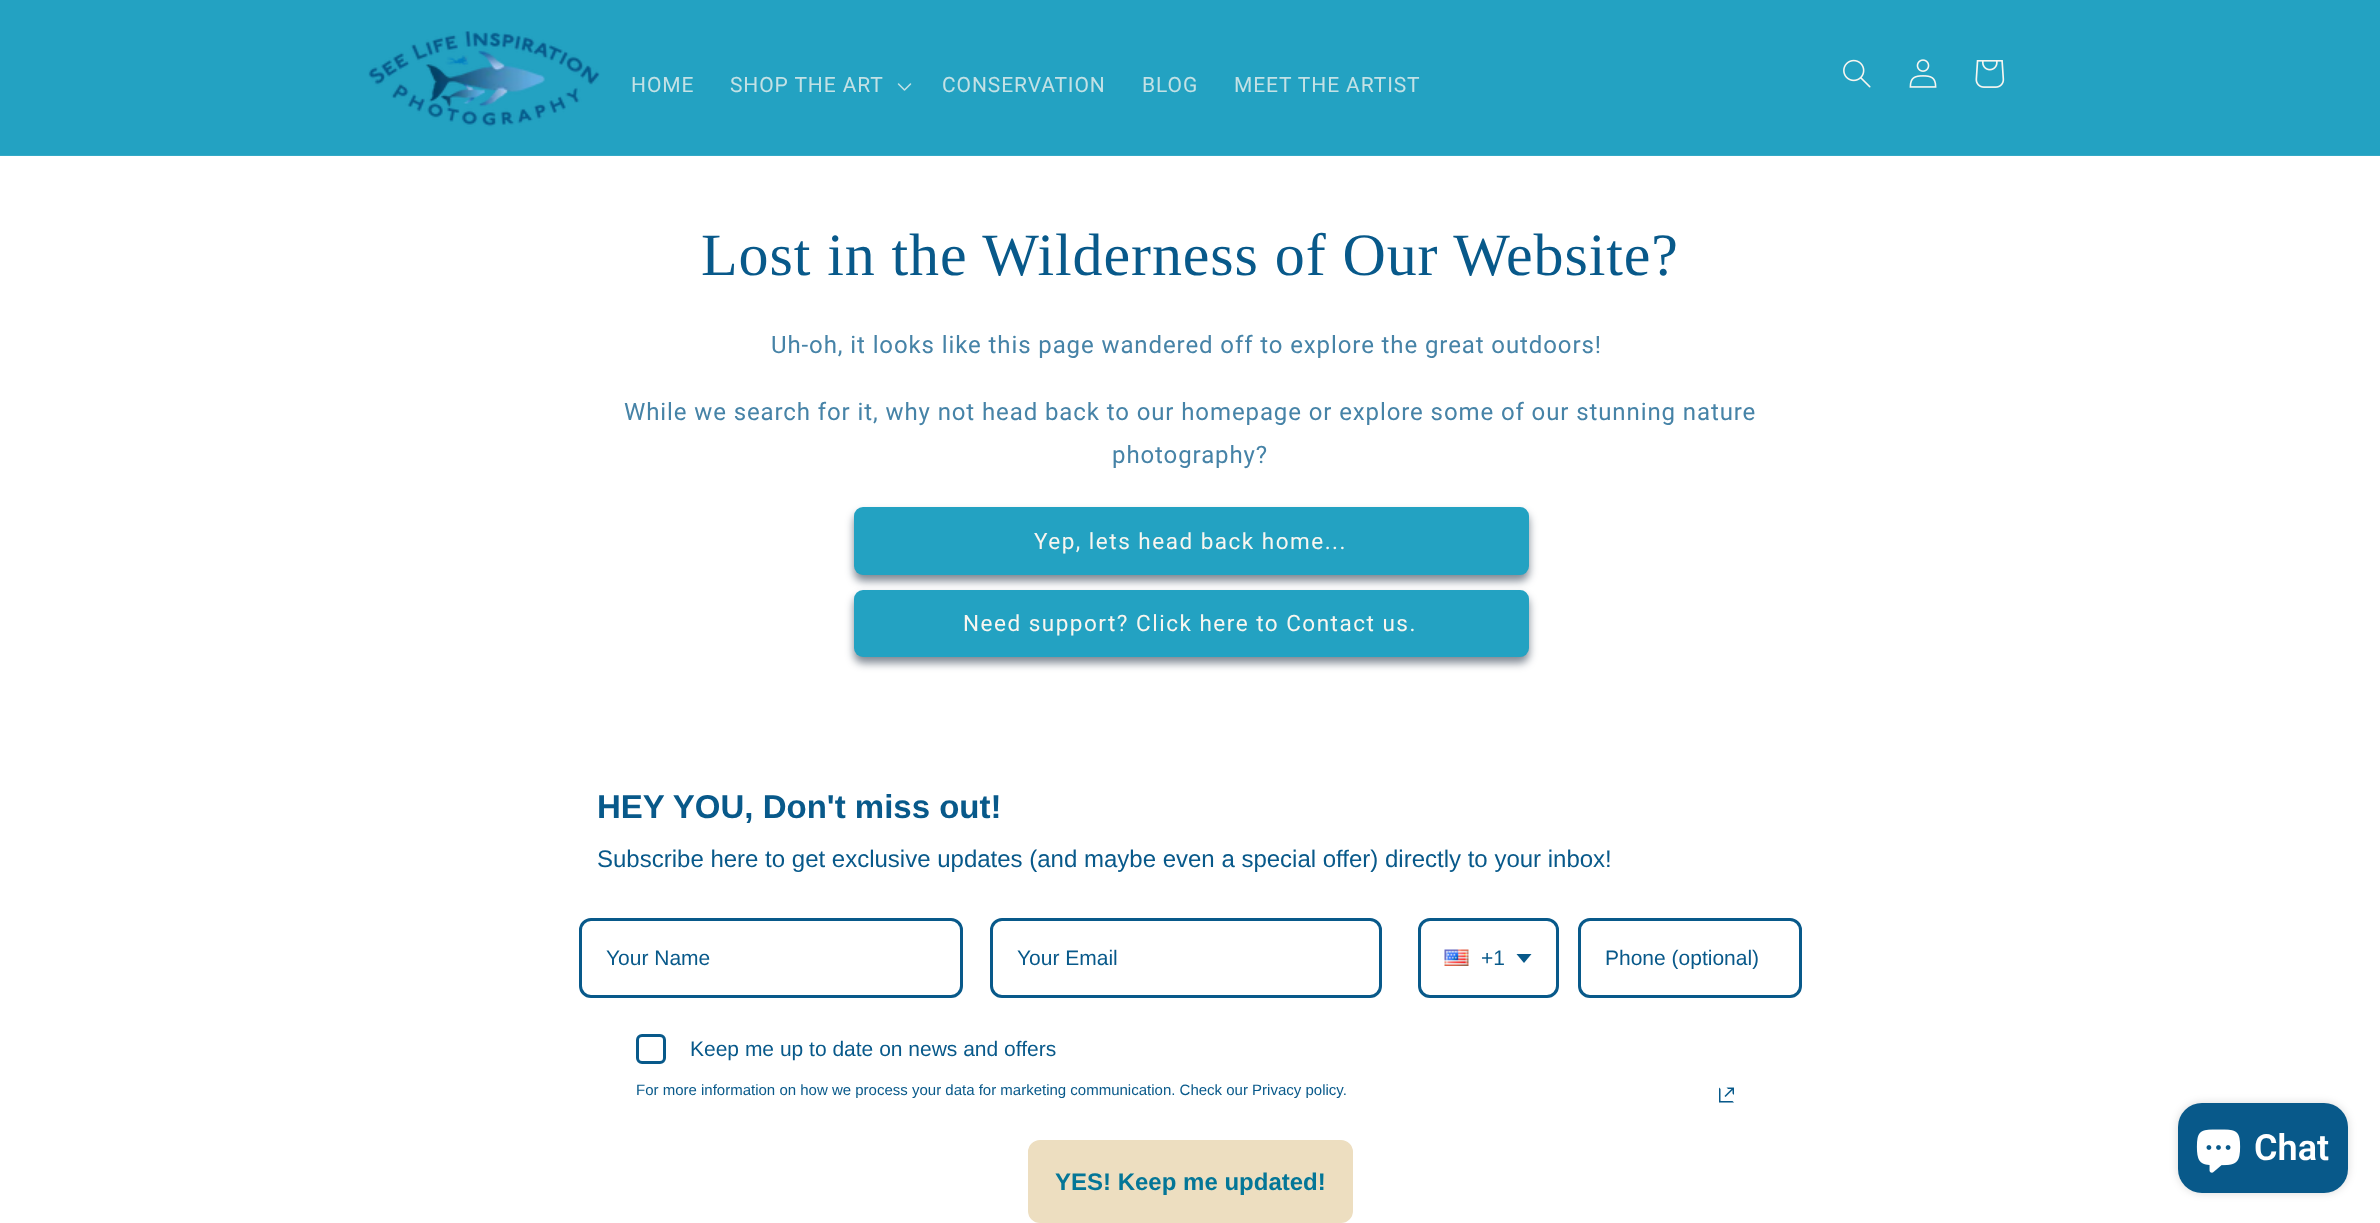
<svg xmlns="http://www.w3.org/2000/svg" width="2380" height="1223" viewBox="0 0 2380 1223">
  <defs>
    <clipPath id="clip1"><rect x="1605" y="945" width="170" height="24"/></clipPath>
  </defs>
  <rect width="100%" height="100%" fill="rgb(255,255,255)"/>
  <rect x="0" y="0" width="2380" height="155" fill="rgb(35,162,194)"/>
  <rect x="0" y="155" width="2380" height="1" fill="rgb(52,169,198)"/>
  <image x="368" y="31" width="232" height="96" href="pic1.png"/>
  <g font-family="Roboto" font-size="21" letter-spacing="0.9" fill="rgb(195,225,229)">
    <text x="631" y="92">HOME</text>
    <text x="730" y="92">SHOP THE ART</text>
  </g>
  <image x="897" y="83" width="15" height="8" href="pic2.png"/>
  <g font-family="Roboto" font-size="21" letter-spacing="0.9" fill="rgb(195,225,229)">
    <text x="942" y="92">CONSERVATION</text>
    <text x="1142" y="92">BLOG</text>
    <text x="1234" y="92">MEET THE ARTIST</text>
  </g>
  <image x="1843" y="59" width="28" height="29" href="pic3.png"/>
  <image x="1909" y="59" width="28" height="29" href="pic4.png"/>
  <image x="1975" y="60" width="30" height="28" href="pic5.png"/>
  <text x="701" y="275" font-family="Liberation Serif" font-size="60" letter-spacing="0.9" fill="rgb(8,89,138)">Lost in the Wilderness of Our Website?</text>
  <g font-family="Roboto" font-size="24" letter-spacing="0.9" fill="rgb(70,131,167)">
    <text x="771" y="353">Uh-oh, it looks like this page wandered off to explore the great outdoors!</text>
    <text x="624" y="420">While we search for it, why not head back to our homepage or explore some of our stunning nature</text>
    <text x="1112" y="463">photography?</text>
  </g>
  <rect x="854" y="513" width="675" height="68" rx="9" fill="rgba(0,17,40,0.5)" filter="blur(4px)"/>
  <rect x="854" y="507" width="675" height="68" rx="9" fill="rgb(35,162,194)"/>
  <text x="1034" y="549" font-family="Roboto" font-size="22.5" letter-spacing="1.5" fill="rgb(248,246,240)">Yep, lets head back home...</text>
  <rect x="854" y="596" width="675" height="67" rx="9" fill="rgba(0,17,40,0.5)" filter="blur(4px)"/>
  <rect x="854" y="590" width="675" height="67" rx="9" fill="rgb(35,162,194)"/>
  <text x="963" y="631" font-family="Roboto" font-size="22.5" letter-spacing="1.5" fill="rgb(248,246,240)">Need support? Click here to Contact us.</text>
  <text x="597" y="818" font-family="Liberation Sans" font-size="33" font-weight="bold" fill="rgb(8,89,138)">HEY YOU, Don't miss out!</text>
  <text x="597" y="867" font-family="Liberation Sans" font-size="24" fill="rgb(8,89,138)">Subscribe here to get exclusive updates (and maybe even a special offer) directly to your inbox!</text>
  <rect x="580.5" y="919.5" width="381" height="77" rx="10.5" fill="none" stroke="rgb(8,89,138)" stroke-width="3"/>
  <text x="606" y="965" font-family="Liberation Sans" font-size="21" fill="rgb(8,89,138)">Your Name</text>
  <rect x="991.5" y="919.5" width="389" height="77" rx="10.5" fill="none" stroke="rgb(8,89,138)" stroke-width="3"/>
  <text x="1017" y="965" font-family="Liberation Sans" font-size="21" fill="rgb(8,89,138)">Your Email</text>
  <rect x="1419.5" y="919.5" width="138" height="77" rx="10.5" fill="none" stroke="rgb(8,89,138)" stroke-width="3"/>
  <image x="1444" y="949" width="25" height="17" href="pic6.png"/>
  <text x="1481" y="965" font-family="Liberation Sans" font-size="21" fill="rgb(8,89,138)">+1</text>
  <path d="M1516.5 954H1531.5L1524 963Z" fill="rgb(8,89,138)" fill-rule="evenodd"/>
  <rect x="1579.5" y="919.5" width="221" height="77" rx="10.5" fill="none" stroke="rgb(8,89,138)" stroke-width="3"/>
  <g clip-path="url(#clip1)">
    <text x="1605" y="965" font-family="Liberation Sans" font-size="21" fill="rgb(8,89,138)">Phone (optional)</text>
  </g>
  <rect x="637.5" y="1035.5" width="27" height="27" rx="4.5" fill="none" stroke="rgb(8,89,138)" stroke-width="3"/>
  <text x="690" y="1056" font-family="Liberation Sans" font-size="21" fill="rgb(8,89,138)">Keep me up to date on news and offers</text>
  <text x="636" y="1095" font-family="Liberation Sans" font-size="15" fill="rgb(8,89,138)">For more information on how we process your data for marketing communication. Check our Privacy policy.</text>
  <image x="1719" y="1087" width="15" height="16" href="pic7.png"/>
  <rect x="1029.5" y="1141.5" width="322" height="80" rx="10.5" fill="rgb(237,222,192)" stroke="rgb(237,222,192)" stroke-width="3"/>
  <text x="1055" y="1190" font-family="Liberation Sans" font-size="24" font-weight="bold" fill="rgb(4,118,151)">YES! Keep me updated!</text>
  <rect x="2178" y="1103" width="170" height="90" rx="24" fill="rgba(0,0,0,0.15)" filter="blur(4px)"/>
  <rect x="2178" y="1103" width="170" height="90" rx="24" fill="rgb(8,89,138)"/>
  <image x="2196" y="1129" width="45" height="44" href="pic8.png"/>
  <text x="2254" y="1160" font-family="Roboto" font-size="36" font-weight="600" fill="rgb(255,255,255)">Chat</text>
</svg>
